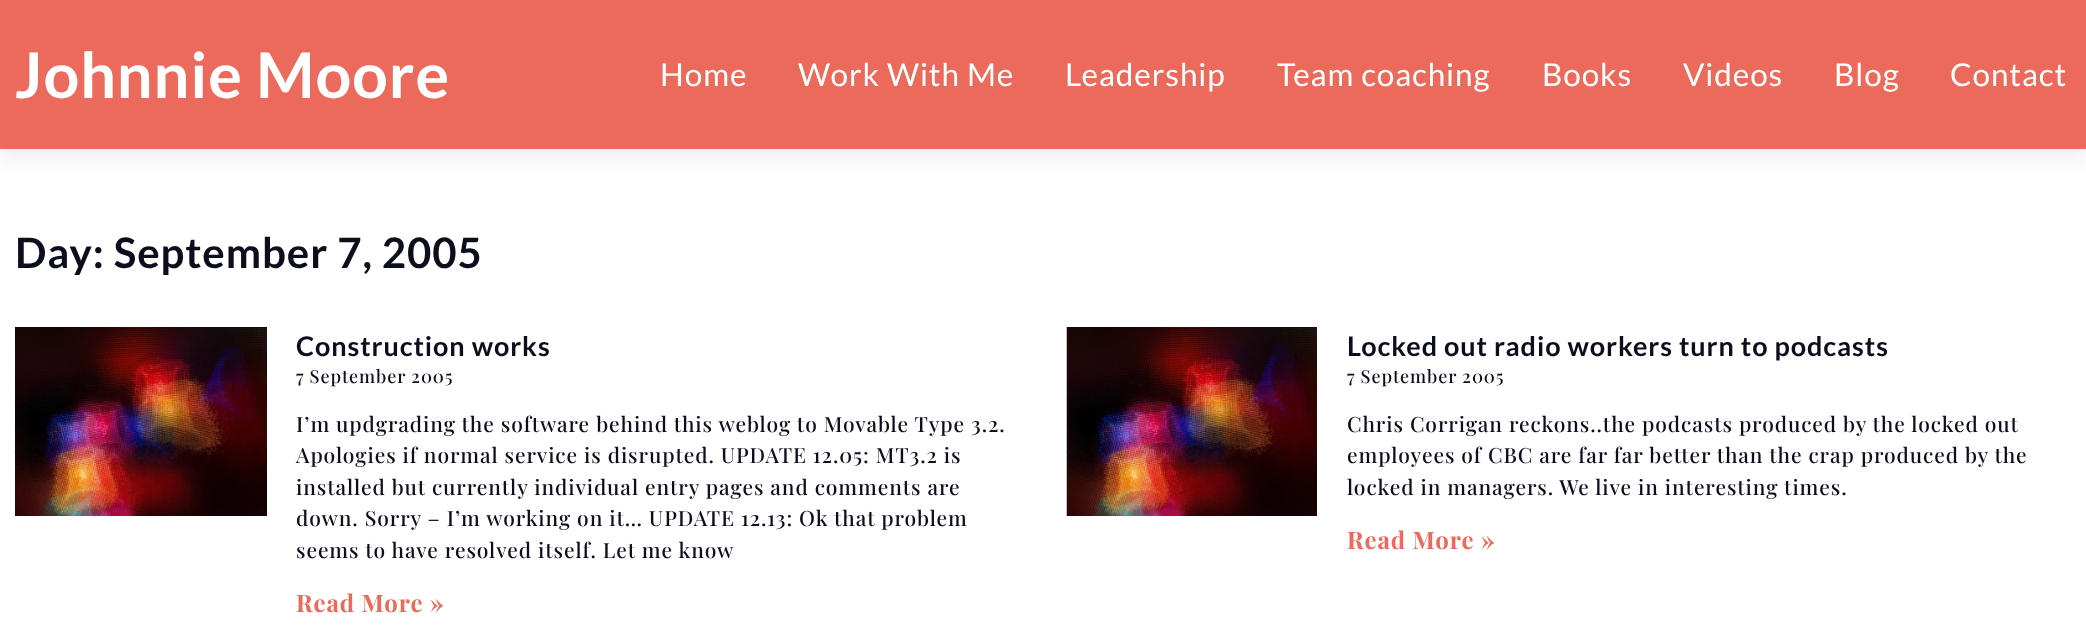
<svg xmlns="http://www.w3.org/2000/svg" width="2086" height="629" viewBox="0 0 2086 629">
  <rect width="100%" height="100%" fill="rgb(255,255,255)"/>
  <rect x="0" y="14" width="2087" height="148" fill="rgba(0,0,0,0.05)" filter="blur(7.5px)"/>
  <rect x="0" y="0" width="2086" height="149" fill="rgb(236,106,91)"/>
  <text x="15" y="98" font-family="Lato" font-size="63" font-weight="bold" letter-spacing="0.9" fill="rgb(255,255,255)">Johnnie Moore</text>
  <g font-family="Lato" font-size="31.5" letter-spacing="0.9" fill="rgb(255,255,255)">
    <text x="660" y="86">Home</text>
    <text x="798" y="86">Work With Me</text>
    <text x="1065" y="86">Leadership</text>
    <text x="1277" y="86">Team coaching</text>
    <text x="1542" y="86">Books</text>
    <text x="1683" y="86">Videos</text>
    <text x="1834" y="86">Blog</text>
    <text x="1950" y="86">Contact</text>
  </g>
  <text x="15" y="268" font-family="Lato" font-size="42" font-weight="bold" letter-spacing="0.9" fill="rgb(12,14,30)">Day: September 7, 2005</text>
  <image x="15" y="327" width="252" height="189" href="pic1.png"/>
  <text x="296" y="356" font-family="Lato" font-size="27" font-weight="bold" letter-spacing="0.9" fill="rgb(12,14,30)">Construction works</text>
  <text x="296" y="383" font-family="Playfair Display" font-size="18" font-weight="500" letter-spacing="0.9" fill="rgb(12,14,30)">7 September 2005</text>
  <g font-family="Playfair Display" font-size="21" font-weight="500" letter-spacing="0.9" fill="rgb(12,14,30)">
    <text>
      <tspan x="296" y="432">I’m updgrading the software behind this weblog to Movable Type 3.2.</tspan>
      <tspan x="296" y="463">Apologies if normal service is disrupted. UPDATE 12.05: MT3.2 is</tspan>
      <tspan x="296" y="495">installed but currently individual entry pages and comments are</tspan>
      <tspan x="296" y="526">down. Sorry – I’m working on it… UPDATE 12.13: Ok that problem</tspan>
      <tspan x="296" y="558">seems to have resolved itself. Let me know</tspan>
    </text>
  </g>
  <text x="296" y="612" font-family="Playfair Display" font-size="24" font-weight="bold" letter-spacing="0.9" fill="rgb(236,106,91)">Read More »</text>
  <image x="1066" y="327" width="251" height="189" href="pic2.png"/>
  <text x="1347" y="356" font-family="Lato" font-size="27" font-weight="bold" letter-spacing="0.9" fill="rgb(12,14,30)">Locked out radio workers turn to podcasts</text>
  <text x="1347" y="383" font-family="Playfair Display" font-size="18" font-weight="500" letter-spacing="0.9" fill="rgb(12,14,30)">7 September 2005</text>
  <g font-family="Playfair Display" font-size="21" font-weight="500" letter-spacing="0.9" fill="rgb(12,14,30)">
    <text>
      <tspan x="1347" y="432">Chris Corrigan reckons..the podcasts produced by the locked out</tspan>
      <tspan x="1347" y="463">employees of CBC are far far better than the crap produced by the</tspan>
      <tspan x="1347" y="495">locked in managers. We live in interesting times.</tspan>
    </text>
  </g>
  <text x="1347" y="549" font-family="Playfair Display" font-size="24" font-weight="bold" letter-spacing="0.9" fill="rgb(236,106,91)">Read More »</text>
</svg>
